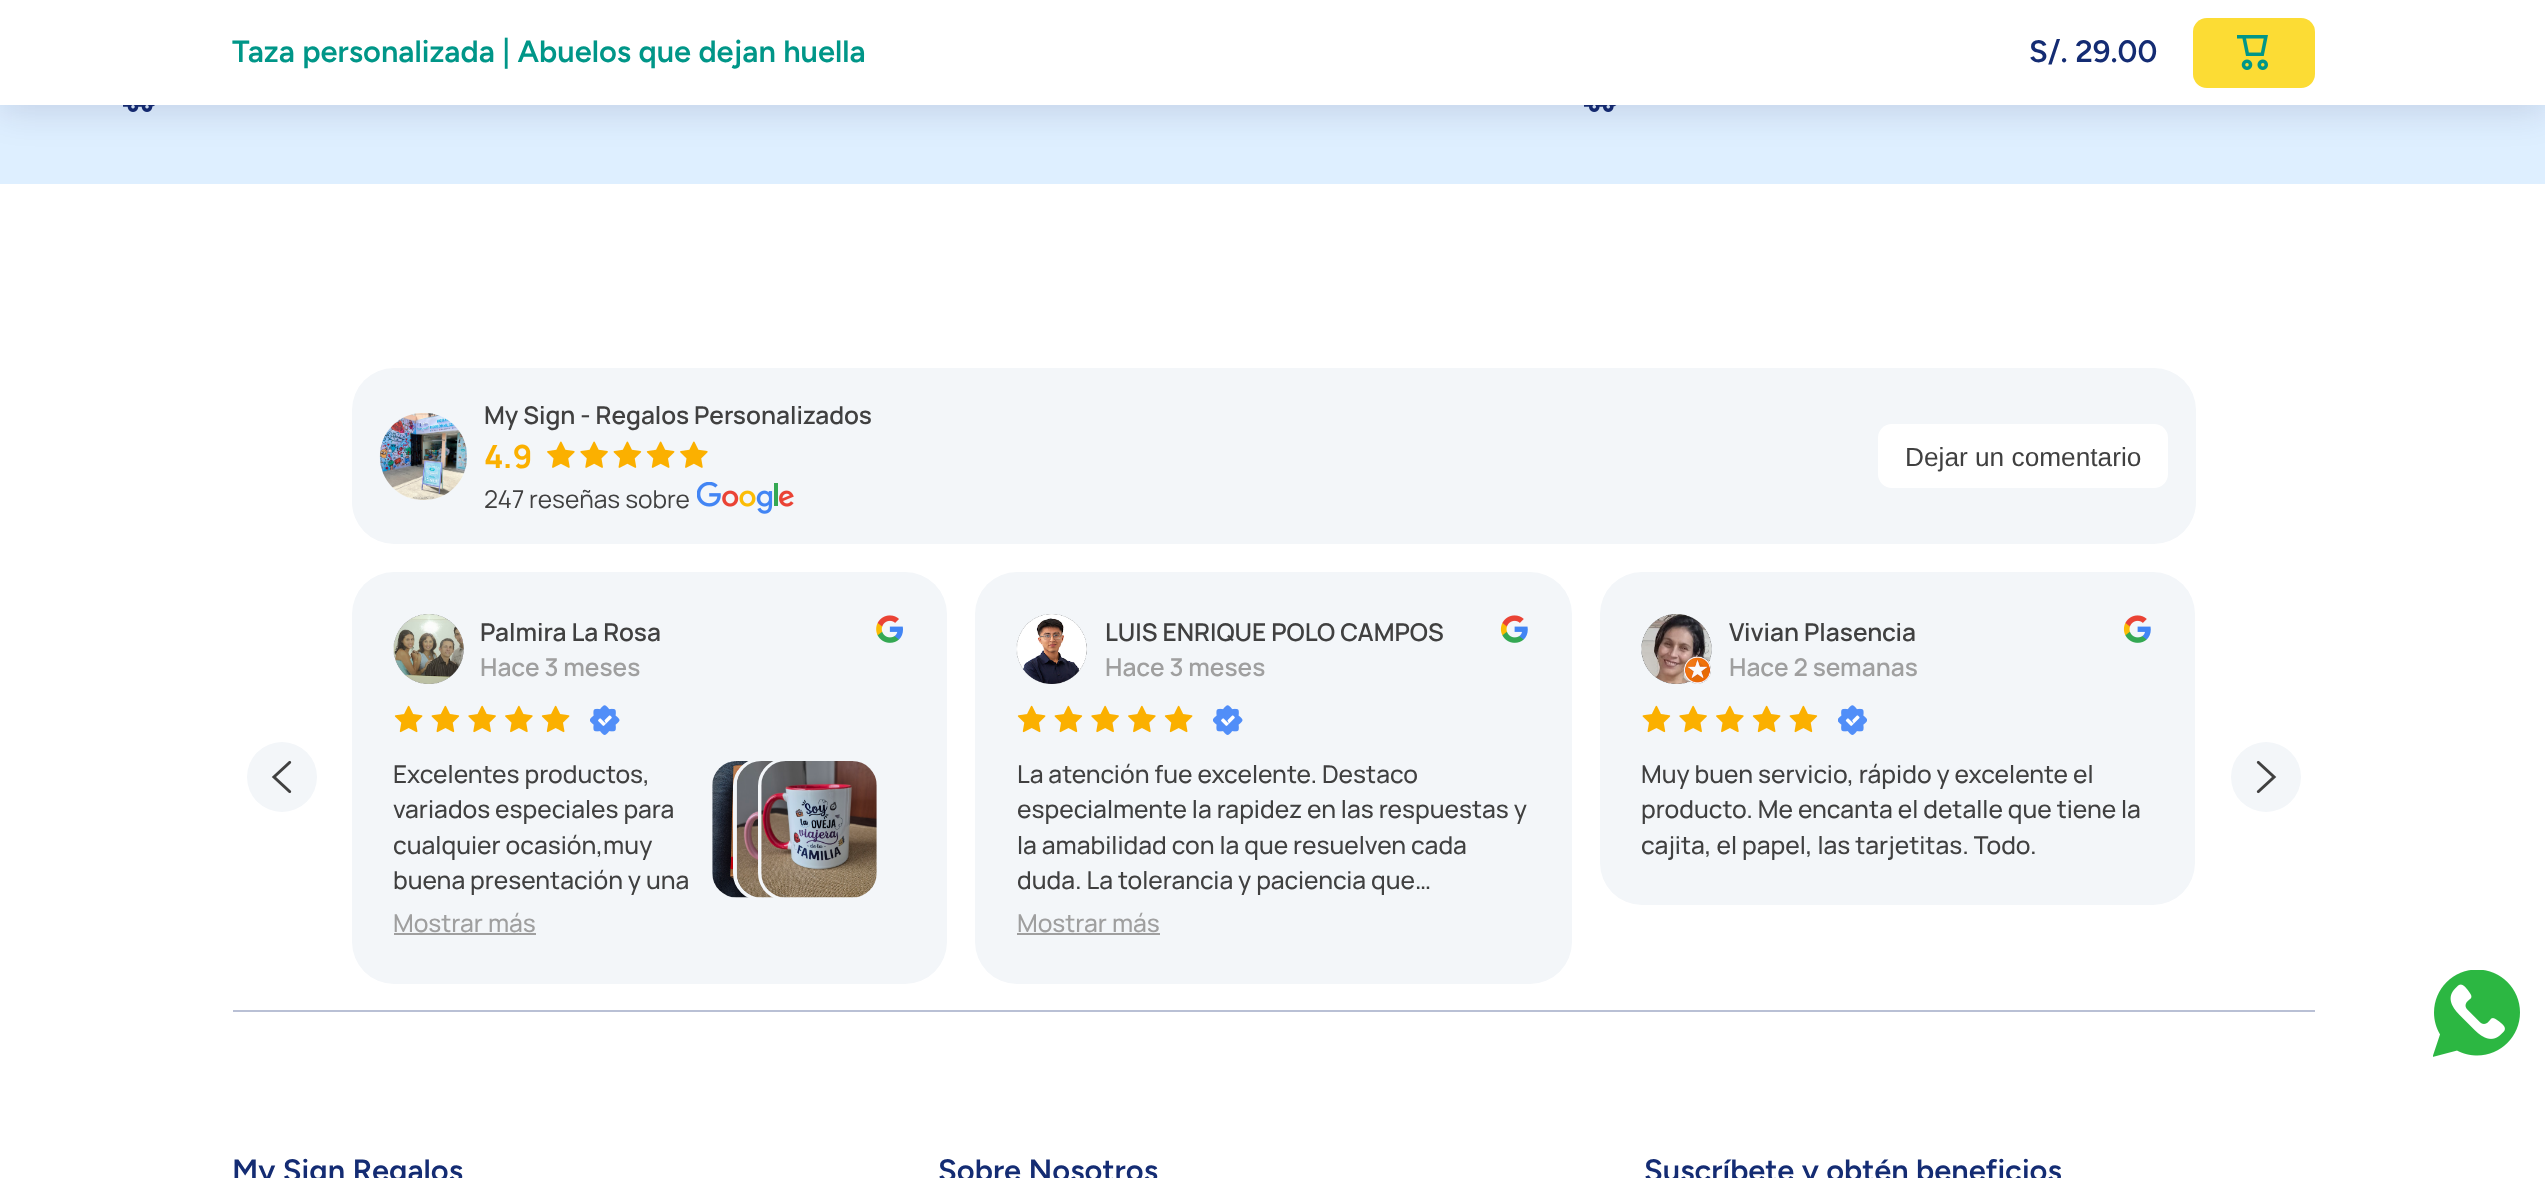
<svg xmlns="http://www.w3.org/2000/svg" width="2545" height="1178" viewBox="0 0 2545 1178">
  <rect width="100%" height="100%" fill="rgb(255,255,255)"/>
  <rect x="0" y="105" width="2545" height="79" fill="rgb(222,239,255)"/>
  <image x="123" y="105" width="32" height="7" href="pic2.png"/>
  <image x="1584" y="105" width="33" height="7" href="pic3.png"/>
  <rect x="0" y="7" width="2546" height="105" fill="rgba(22,19,69,0.13)" filter="blur(17.5px)"/>
  <rect x="0" y="0" width="2545" height="105" fill="rgb(255,255,255)"/>
  <text x="232" y="62" font-family="Figtree" font-size="30.8" font-weight="600" fill="rgb(0,150,136)">Taza personalizada | Abuelos que dejan huella</text>
  <text x="2029" y="62" font-family="Figtree" font-size="30.8" font-weight="600" fill="rgb(20,44,115)">S/. 29.00</text>
  <rect x="2193" y="18" width="122" height="70" rx="14" fill="rgb(252,220,52)"/>
  <image x="2237" y="35" width="31" height="35" href="pic1.png"/>
  <rect x="352" y="368" width="1844" height="176" rx="42" fill="rgb(243,246,249)"/>
  <image x="379" y="413" width="88" height="87" href="pic4.png"/>
  <text x="484" y="424" font-family="Manrope" font-size="24.5" font-weight="600" fill="rgb(64,64,64)">My Sign - Regalos Personalizados</text>
  <text x="484" y="468" font-family="Manrope" font-size="32" font-weight="bold" fill="rgb(251,176,0)">4.9</text>
  <image x="547" y="441" width="28" height="27" href="pic5.png"/>
  <image x="580" y="441" width="28" height="27" href="pic6.png"/>
  <image x="613" y="441" width="29" height="27" href="pic7.png"/>
  <image x="646" y="441" width="29" height="27" href="pic8.png"/>
  <image x="680" y="441" width="28" height="27" href="pic5.png"/>
  <text x="484" y="508" font-family="Manrope" font-size="24.5" fill="rgb(64,64,64)">247 reseñas sobre</text>
  <image x="697" y="482" width="97" height="32" href="pic9.png"/>
  <rect x="1878" y="424" width="290" height="64" rx="14" fill="rgb(255,255,255)"/>
  <text x="1905" y="466" font-family="Liberation Sans" font-size="26.25" fill="rgb(64,64,64)">Dejar un comentario</text>
  <circle cx="282" cy="777" r="35" fill="rgb(243,246,249)"/>
  <image x="271" y="760" width="21" height="34" href="pic10.png"/>
  <rect x="352" y="572" width="595" height="412" rx="42" fill="rgb(243,246,249)"/>
  <image x="393" y="614" width="71" height="70" href="pic11.png"/>
  <text x="480" y="641" font-family="Manrope" font-size="24.5" font-weight="600" fill="rgb(64,64,64)">Palmira La Rosa</text>
  <text x="480" y="676" font-family="Manrope" font-size="24.5" font-weight="600" fill="rgb(159,159,159)">Hace 3 meses</text>
  <image x="876" y="615" width="27" height="28" href="pic12.png"/>
  <image x="394" y="705" width="29" height="28" href="pic13.png"/>
  <image x="431" y="705" width="29" height="28" href="pic14.png"/>
  <image x="468" y="705" width="28" height="28" href="pic15.png"/>
  <image x="505" y="705" width="28" height="28" href="pic16.png"/>
  <image x="541" y="705" width="29" height="28" href="pic13.png"/>
  <image x="590" y="705" width="30" height="30" href="pic17.png"/>
  <g font-family="Manrope" font-size="24.5" font-weight="500" fill="rgb(64,64,64)">
    <text>
      <tspan x="393" y="783">Excelentes productos,</tspan>
      <tspan x="393" y="818">variados especiales para</tspan>
      <tspan x="393" y="854">cualquier ocasión,muy</tspan>
      <tspan x="393" y="889">buena presentación y una</tspan>
    </text>
  </g>
  <image x="712" y="761" width="44" height="137" href="pic19.png"/>
  <rect x="735" y="760" width="119" height="139" rx="26" fill="none" stroke="rgb(243,246,249)" stroke-width="4"/>
  <image x="736" y="761" width="44" height="137" href="pic18.png"/>
  <rect x="760" y="760" width="118" height="139" rx="26" fill="none" stroke="rgb(243,246,249)" stroke-width="4"/>
  <image x="761" y="761" width="116" height="137" href="pic20.png"/>
  <text x="393" y="932" font-family="Manrope" font-size="24.5" font-weight="500" fill="rgb(159,159,159)">Mostrar más</text>
  <rect x="394" y="933" width="142" height="2" fill="rgb(159,159,159)"/>
  <rect x="975" y="572" width="597" height="412" rx="42" fill="rgb(243,246,249)"/>
  <image x="1016" y="614" width="71" height="70" href="pic21.png"/>
  <text x="1105" y="641" font-family="Manrope" font-size="24.5" font-weight="600" fill="rgb(64,64,64)">LUIS ENRIQUE POLO CAMPOS</text>
  <text x="1105" y="676" font-family="Manrope" font-size="24.5" font-weight="600" fill="rgb(159,159,159)">Hace 3 meses</text>
  <image x="1500" y="615" width="28" height="28" href="pic22.png"/>
  <image x="1017" y="705" width="29" height="28" href="pic13.png"/>
  <image x="1054" y="705" width="29" height="28" href="pic14.png"/>
  <image x="1091" y="705" width="28" height="28" href="pic15.png"/>
  <image x="1128" y="705" width="28" height="28" href="pic16.png"/>
  <image x="1164" y="705" width="29" height="28" href="pic13.png"/>
  <image x="1213" y="705" width="30" height="30" href="pic17.png"/>
  <g font-family="Manrope" font-size="24.5" font-weight="500" fill="rgb(64,64,64)">
    <text>
      <tspan x="1017" y="783">La atención fue excelente. Destaco</tspan>
      <tspan x="1017" y="818">especialmente la rapidez en las respuestas y</tspan>
      <tspan x="1017" y="854">la amabilidad con la que resuelven cada</tspan>
      <tspan x="1017" y="889">duda. La tolerancia y paciencia que…</tspan>
    </text>
  </g>
  <text x="1017" y="932" font-family="Manrope" font-size="24.5" font-weight="500" fill="rgb(159,159,159)">Mostrar más</text>
  <rect x="1017" y="933" width="143" height="2" fill="rgb(159,159,159)"/>
  <rect x="1600" y="572" width="595" height="333" rx="42" fill="rgb(243,246,249)"/>
  <image x="1641" y="614" width="71" height="70" href="pic23.png"/>
  <text x="1729" y="641" font-family="Manrope" font-size="24.5" font-weight="600" fill="rgb(64,64,64)">Vivian Plasencia</text>
  <text x="1729" y="676" font-family="Manrope" font-size="24.5" font-weight="600" fill="rgb(159,159,159)">Hace 2 semanas</text>
  <image x="2123" y="615" width="28" height="28" href="pic22.png"/>
  <image x="1642" y="705" width="29" height="28" href="pic14.png"/>
  <image x="1679" y="705" width="28" height="28" href="pic15.png"/>
  <image x="1716" y="705" width="28" height="28" href="pic16.png"/>
  <image x="1752" y="705" width="29" height="28" href="pic13.png"/>
  <image x="1789" y="705" width="29" height="28" href="pic14.png"/>
  <image x="1838" y="705" width="29" height="30" href="pic24.png"/>
  <g font-family="Manrope" font-size="24.5" font-weight="500" fill="rgb(64,64,64)">
    <text>
      <tspan x="1641" y="783">Muy buen servicio, rápido y excelente el</tspan>
      <tspan x="1641" y="818">producto. Me encanta el detalle que tiene la</tspan>
      <tspan x="1641" y="854">cajita, el papel, las tarjetitas. Todo.</tspan>
    </text>
  </g>
  <circle cx="2266" cy="777" r="35" fill="rgb(243,246,249)"/>
  <image x="2256" y="760" width="21" height="34" href="pic25.png"/>
  <image x="2433" y="970" width="87" height="87" href="pic26.png"/>
  <rect x="233" y="1010" width="2082" height="2" fill="rgb(185,192,213)"/>
  <g font-family="Figtree" font-size="30.8" font-weight="600" fill="rgb(20,44,115)">
    <text x="232" y="1181">My Sign Regalos</text>
    <text x="938" y="1181">Sobre Nosotros</text>
    <text x="1644" y="1181">Suscríbete y obtén beneficios</text>
  </g>
</svg>
